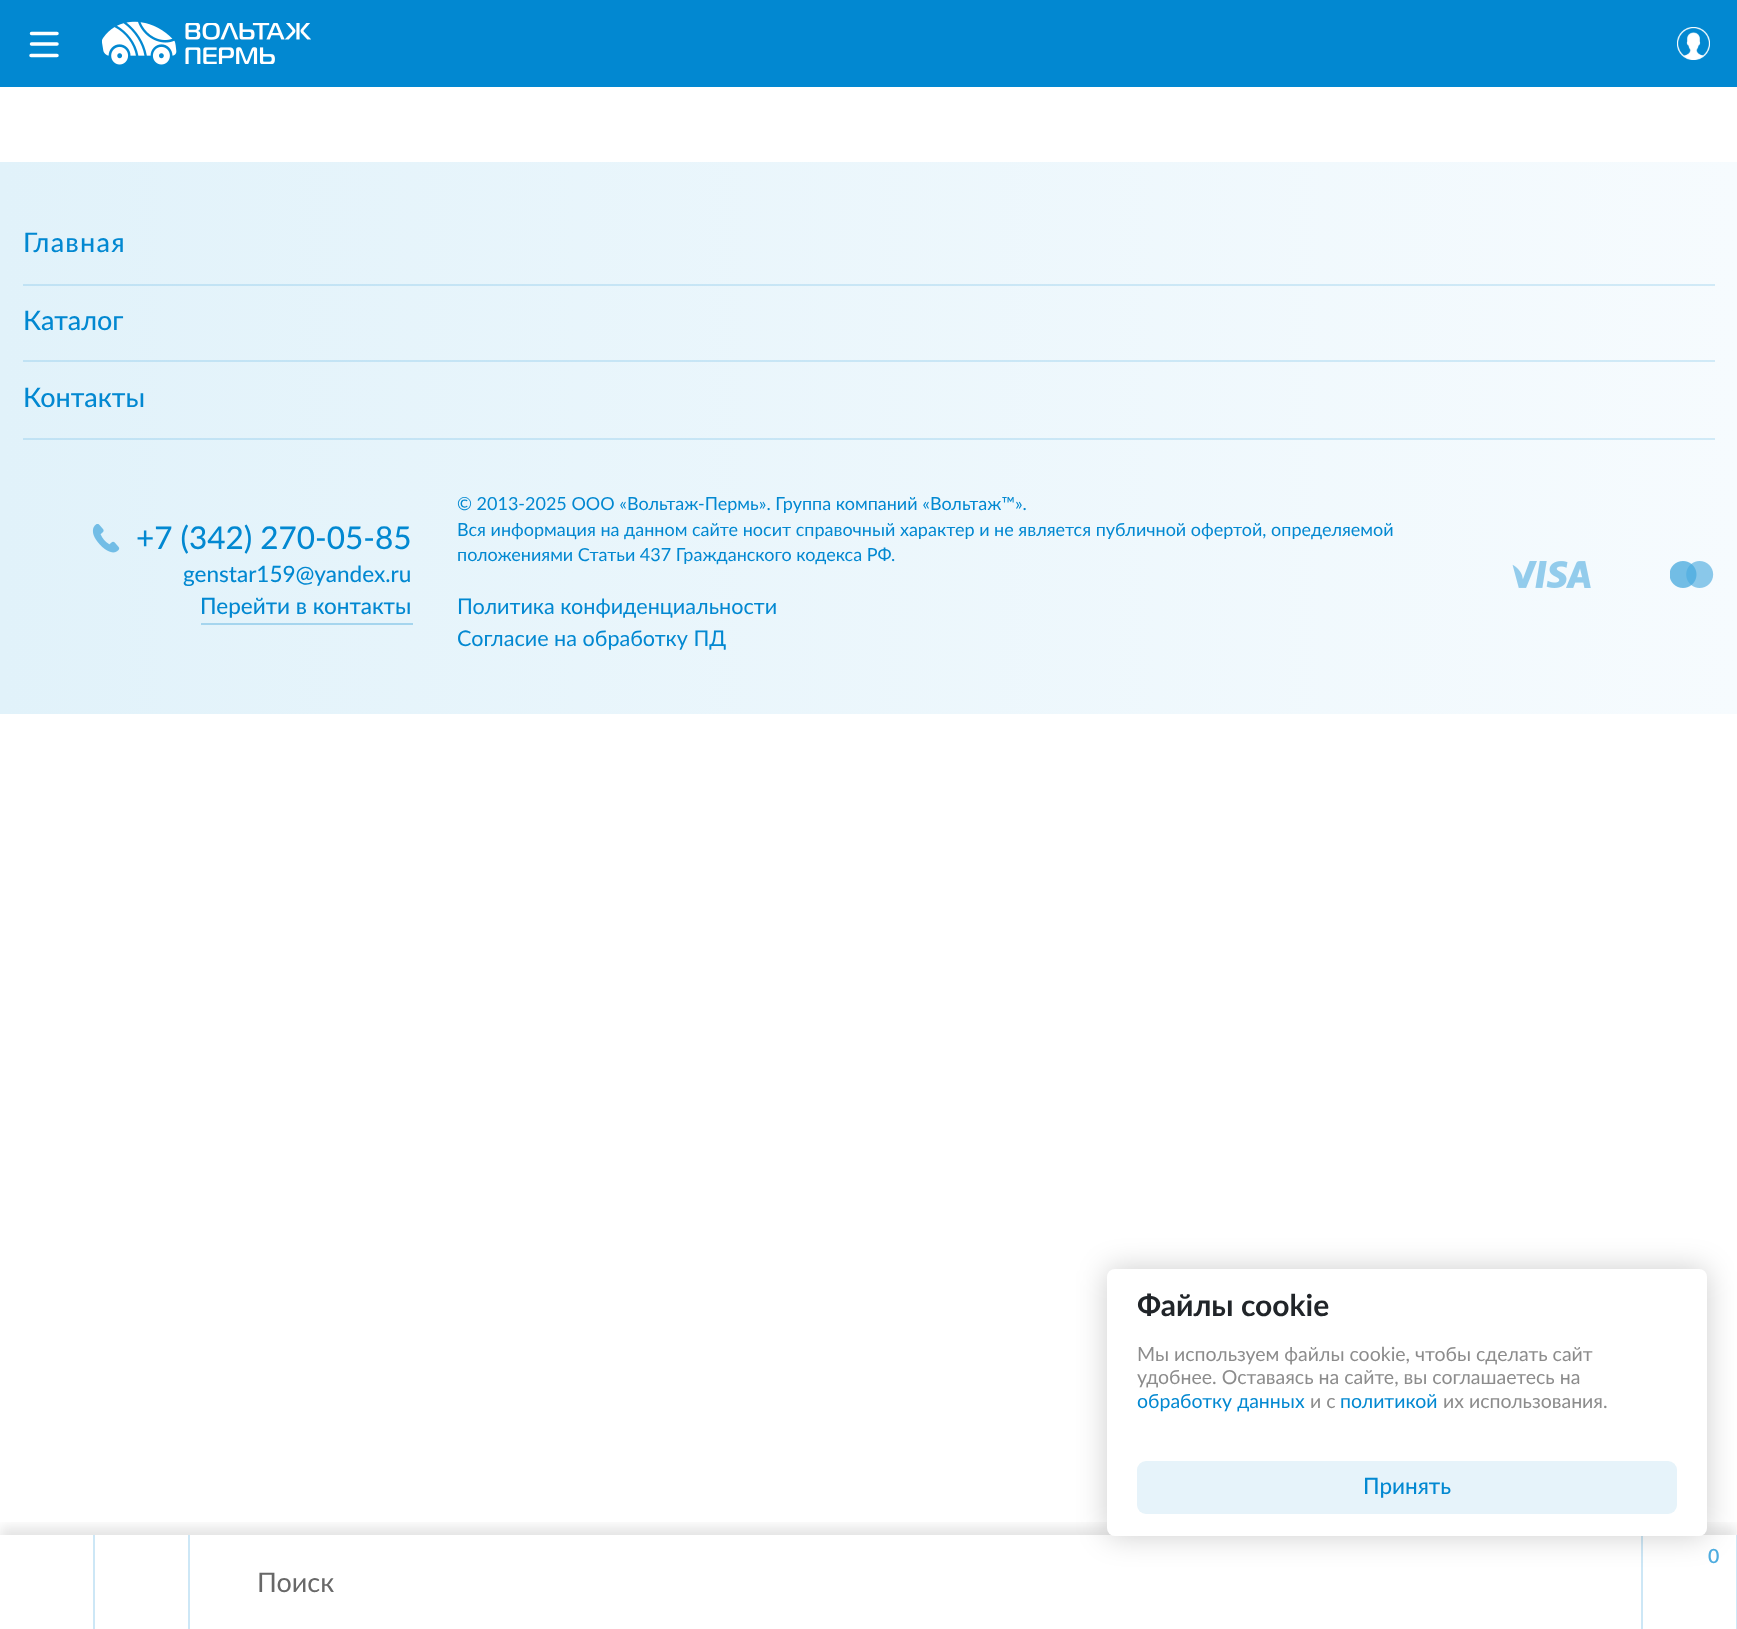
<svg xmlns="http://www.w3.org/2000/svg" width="1737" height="1629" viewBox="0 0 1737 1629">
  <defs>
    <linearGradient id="g1" gradientUnits="userSpaceOnUse" x1="0" y1="438" x2="1737" y2="438"><stop offset="0" stop-color="rgb(225,242,250)"/><stop offset="1" stop-color="rgb(246,251,254)"/></linearGradient>
    <linearGradient id="g2" gradientUnits="userSpaceOnUse" x1="0" y1="438" x2="1737" y2="438"><stop offset="0" stop-color="rgb(192,226,244)"/><stop offset="1" stop-color="rgb(209,234,247)"/></linearGradient>
    <clipPath id="clip1"><rect x="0" y="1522" width="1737" height="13"/></clipPath>
  </defs>
  <rect width="100%" height="100%" fill="rgb(255,255,255)"/>
  <rect x="0" y="0" width="1737" height="87" fill="rgb(2,136,209)"/>
  <path d="M57 33.5H31.5M57 44H31.5M57 55.5H31" fill="none" stroke="rgb(255,255,255)" stroke-width="3.5" stroke-linecap="round"/>
  <image x="102" y="21" width="209" height="44" href="pic1.png"/>
  <image x="1677" y="27" width="33" height="33" href="pic2.png"/>
  <rect x="0" y="162" width="1737" height="552" fill="url(#g1)"/>
  <rect x="23" y="438" width="1692" height="2" fill="url(#g2)"/>
  <rect x="23" y="360" width="1692" height="2" fill="url(#g2)"/>
  <rect x="23" y="284" width="1692" height="2" fill="url(#g2)"/>
  <text x="23" y="252" font-family="Lato" font-size="27" font-weight="500" letter-spacing="1.25" fill="rgb(2,136,209)">Главная</text>
  <g font-family="Lato" font-size="27" font-weight="500" fill="rgb(2,136,209)">
    <text x="23" y="330">Каталог</text>
    <text x="23" y="407">Контакты</text>
  </g>
  <image x="92" y="524" width="28" height="29" href="pic3.png"/>
  <text x="136" y="549" font-family="Lato" font-size="31.5" font-weight="500" fill="rgb(2,136,209)">+7 (342) 270-05-85</text>
  <text x="183" y="582" font-family="Lato" font-size="22.5" font-weight="500" fill="rgb(2,136,209)">genstar159@yandex.ru</text>
  <rect x="201" y="623" width="212" height="2" fill="rgb(165,213,238)"/>
  <text x="200" y="614" font-family="Lato" font-size="22.5" font-weight="500" fill="rgb(2,136,209)">Перейти в контакты</text>
  <g font-family="Lato" font-size="18" fill="rgb(2,136,209)">
    <text>
      <tspan x="457" y="510">© 2013-2025 ООО «Вольтаж-Пермь». Группа компаний «Вольтаж™».</tspan>
      <tspan x="457" y="536">Вся информация на данном сайте носит справочный характер и не является публичной офертой, определяемой</tspan>
      <tspan x="457" y="561">положениями Статьи 437 Гражданского кодекса РФ.</tspan>
    </text>
  </g>
  <g font-family="Lato" font-size="21.6" fill="rgb(2,136,209)">
    <text>
      <tspan x="457" y="614">Политика конфиденциальности</tspan>
      <tspan x="457" y="646">Согласие на обработку ПД</tspan>
    </text>
  </g>
  <image x="1670" y="561" width="44" height="27" href="pic4.png"/>
  <image x="1512" y="561" width="79" height="27" href="pic5.png"/>
  <g clip-path="url(#clip1)">
    <rect x="0" y="1527" width="1737" height="96" fill="rgba(0,0,0,0.1)" filter="blur(6px)"/>
  </g>
  <rect x="1736" y="1535" width="1" height="94" fill="rgb(205,231,246)"/>
  <rect x="1641" y="1535" width="2" height="94" fill="rgb(205,231,246)"/>
  <rect x="1107" y="1269" width="600" height="267" rx="8" fill="rgba(0,0,0,0.2)" filter="blur(15px)"/>
  <rect x="1107" y="1269" width="600" height="267" rx="8" fill="rgb(255,255,255)"/>
  <text x="1137" y="1316" font-family="Lato" font-size="30" font-weight="bold" fill="rgb(33,37,41)">Файлы cookie</text>
  <g font-family="Lato" font-size="19.5" fill="rgb(140,140,140)">
    <text>
      <tspan x="1137" y="1361">Мы используем файлы cookie, чтобы cделать сайт</tspan>
      <tspan x="1137" y="1384">удобнее. Оставаясь на сайте, вы соглашаетесь на</tspan>
    </text>
  </g>
  <text x="1137" y="1408" font-family="Lato" font-size="19.5" fill="rgb(2,136,209)">обработку данных</text>
  <text x="1310" y="1408" font-family="Lato" font-size="19.5" fill="rgb(140,140,140)">и с</text>
  <text x="1340" y="1408" font-family="Lato" font-size="19.5" fill="rgb(2,136,209)">политикой</text>
  <text x="1443" y="1408" font-family="Lato" font-size="19.5" fill="rgb(140,140,140)">их использования.</text>
  <rect x="1137" y="1461" width="540" height="53" rx="9" fill="rgb(230,243,250)"/>
  <text x="1363" y="1494" font-family="Lato" font-size="22.5" font-weight="500" fill="rgb(2,136,209)">Принять</text>
  <rect x="93" y="1535" width="2" height="94" fill="rgb(205,231,246)"/>
  <rect x="188" y="1535" width="2" height="94" fill="rgb(205,231,246)"/>
  <text x="1708" y="1563" font-family="Lato" font-size="19.5" font-weight="600" fill="rgb(78,172,223)">0</text>
  <text x="257" y="1592" font-family="Lato" font-size="27" fill="rgb(104,104,104)">Поиск</text>
</svg>
